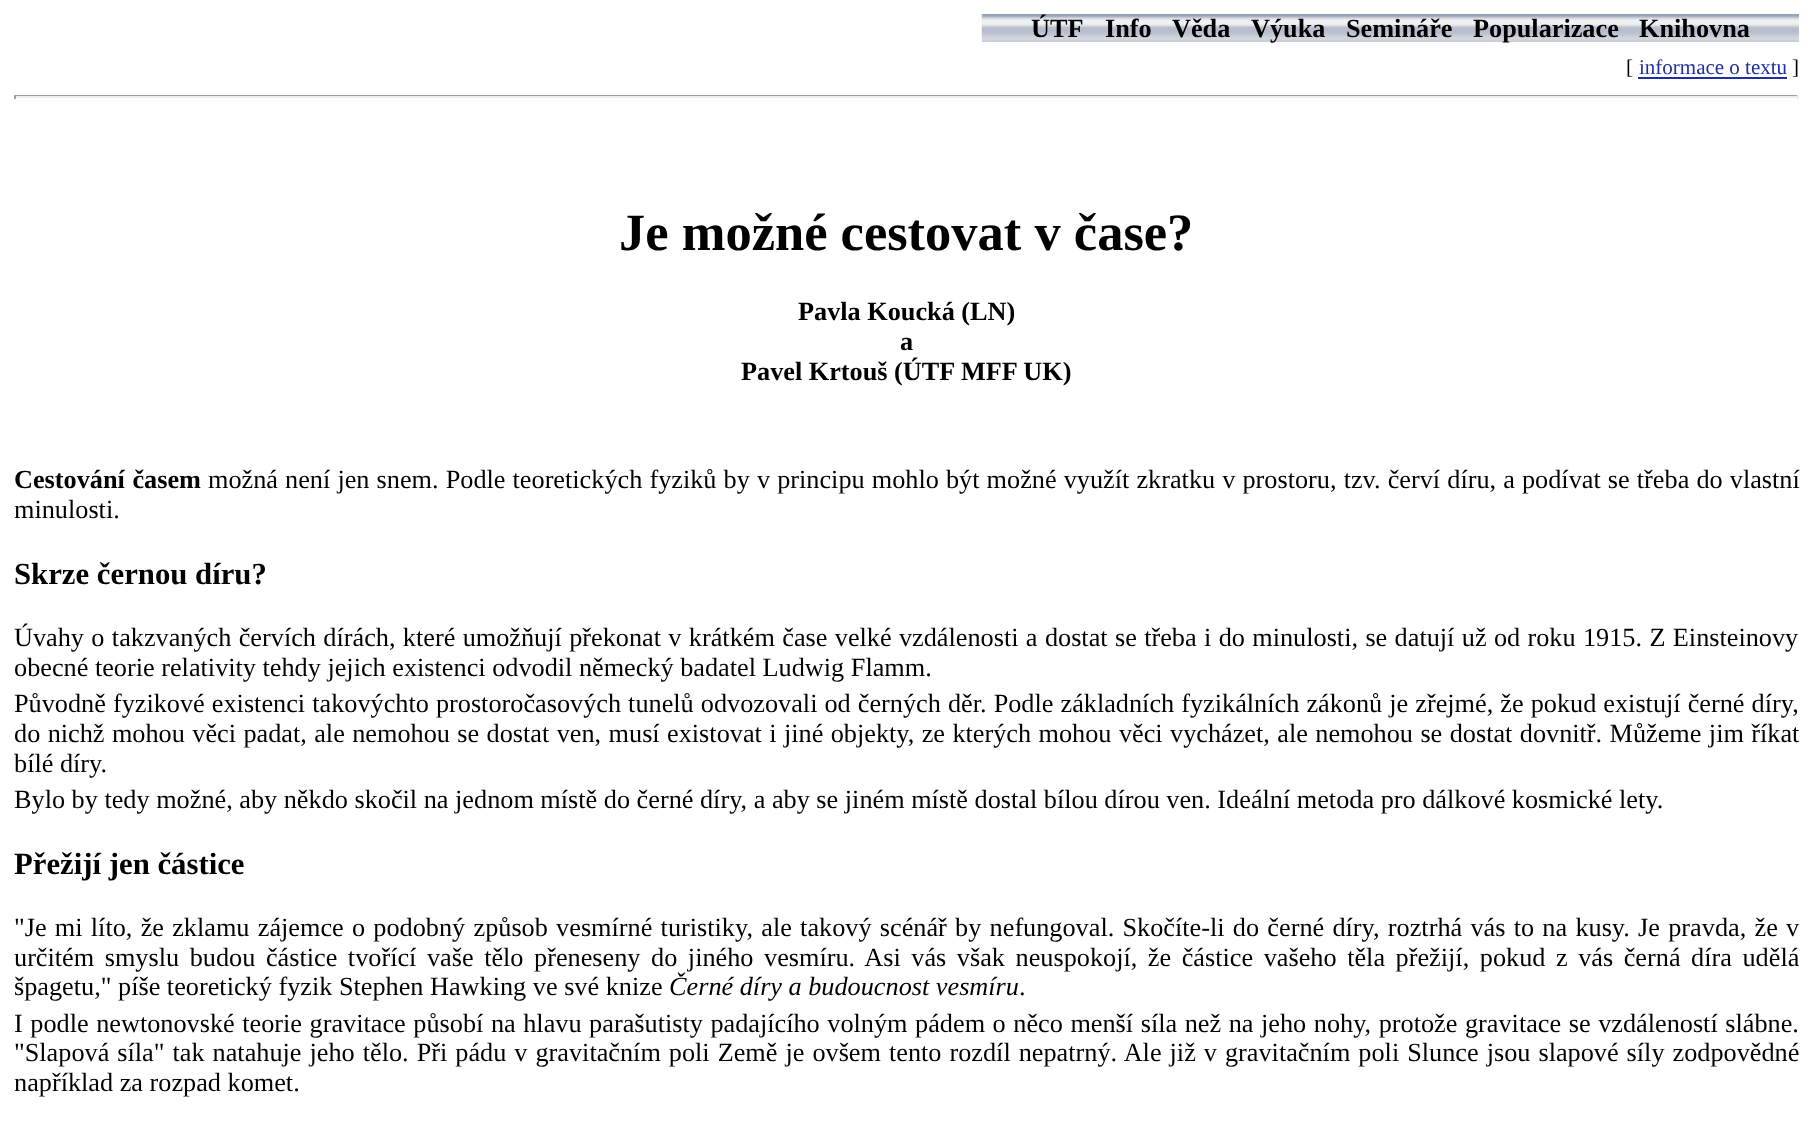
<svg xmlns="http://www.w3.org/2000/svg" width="1813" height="1122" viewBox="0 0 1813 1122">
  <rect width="100%" height="100%" fill="rgb(255,255,255)"/>
  <image x="981" y="14" width="818" height="28" href="pic1.png"/>
  <g font-family="Liberation Serif" font-size="26.25" font-weight="bold" fill="rgb(0,0,0)">
    <text x="1031" y="37">ÚTF</text>
    <text x="1105" y="37">Info</text>
    <text x="1172" y="37">Věda</text>
    <text x="1251" y="37">Výuka</text>
    <text x="1346" y="37">Semináře</text>
    <text x="1473" y="37">Popularizace</text>
    <text x="1639" y="37">Knihovna</text>
  </g>
  <text x="1626" y="74" font-family="Liberation Serif" font-size="21" fill="rgb(0,0,0)">[</text>
  <text x="1639" y="74" font-family="Liberation Serif" font-size="21" fill="rgb(31,47,159)">informace o textu</text>
  <rect x="1638" y="77" width="149" height="2" fill="rgb(31,47,159)"/>
  <text x="1792" y="74" font-family="Liberation Serif" font-size="21" fill="rgb(0,0,0)">]</text>
  <rect x="14" y="95" width="1785" height="1" fill="rgb(159,159,159)"/>
  <rect x="1797" y="95" width="2" height="4" fill="rgb(238,238,238)"/>
  <rect x="14" y="96" width="1785" height="2" fill="rgb(238,238,238)"/>
  <rect x="14" y="95" width="2" height="4" fill="rgb(159,159,159)"/>
  <text x="619" y="250" font-family="Liberation Serif" font-size="52.5" font-weight="bold" fill="rgb(0,0,0)">Je možné cestovat v čase?</text>
  <g font-family="Liberation Serif" font-size="26.25" font-weight="bold" fill="rgb(0,0,0)">
    <text x="798" y="320">Pavla Koucká (LN)</text>
    <text x="900" y="350">a</text>
    <text x="741" y="380">Pavel Krtouš (ÚTF MFF UK)</text>
    <text x="14" y="488" word-spacing="1">Cestování časem</text>
  </g>
  <g font-family="Liberation Serif" font-size="26.25" fill="rgb(0,0,0)">
    <text x="208" y="488" word-spacing="0.55">možná není jen snem. Podle teoretických fyziků by v principu mohlo být možné využít zkratku v prostoru, tzv. červí díru, a podívat se třeba do vlastní</text>
    <text x="14" y="518">minulosti.</text>
  </g>
  <text x="14" y="584" font-family="Liberation Serif" font-size="30.75" font-weight="bold" fill="rgb(0,0,0)">Skrze černou díru?</text>
  <g font-family="Liberation Serif" font-size="26.25" fill="rgb(0,0,0)">
    <text>
      <tspan x="14" y="646" word-spacing="0.8">Úvahy o takzvaných červích dírách, které umožňují překonat v krátkém čase velké vzdálenosti a dostat se třeba i do minulosti, se datují už od roku 1915. Z Einsteinovy</tspan>
      <tspan x="14" y="676">obecné teorie relativity tehdy jejich existenci odvodil německý badatel Ludwig Flamm.</tspan>
      <tspan x="14" y="712" word-spacing="0.5">Původně fyzikové existenci takovýchto prostoročasových tunelů odvozovali od černých děr. Podle základních fyzikálních zákonů je zřejmé, že pokud existují černé díry,</tspan>
      <tspan x="14" y="742" word-spacing="0.85">do nichž mohou věci padat, ale nemohou se dostat ven, musí existovat i jiné objekty, ze kterých mohou věci vycházet, ale nemohou se dostat dovnitř. Můžeme jim říkat</tspan>
      <tspan x="14" y="772">bílé díry.</tspan>
      <tspan x="14" y="808">Bylo by tedy možné, aby někdo skočil na jednom místě do černé díry, a aby se jiném místě dostal bílou dírou ven. Ideální metoda pro dálkové kosmické lety.</tspan>
    </text>
  </g>
  <text x="14" y="874" font-family="Liberation Serif" font-size="30.75" font-weight="bold" fill="rgb(0,0,0)">Přežijí jen částice</text>
  <g font-family="Liberation Serif" font-size="26.25" fill="rgb(0,0,0)">
    <text>
      <tspan x="14" y="936" word-spacing="1.7">"Je mi líto, že zklamu zájemce o podobný způsob vesmírné turistiky, ale takový scénář by nefungoval. Skočíte-li do černé díry, roztrhá vás to na kusy. Je pravda, že v</tspan>
      <tspan x="14" y="966" word-spacing="4">určitém smyslu budou částice tvořící vaše tělo přeneseny do jiného vesmíru. Asi vás však neuspokojí, že částice vašeho těla přežijí, pokud z vás černá díra udělá</tspan>
      <tspan x="14" y="995">špagetu," píše teoretický fyzik Stephen Hawking ve své knize</tspan>
    </text>
  </g>
  <text x="669" y="995" font-family="Liberation Serif" font-size="26.25" font-style="italic" fill="rgb(0,0,0)">Černé díry a budoucnost vesmíru</text>
  <g font-family="Liberation Serif" font-size="26.25" fill="rgb(0,0,0)">
    <text x="1019" y="995">.</text>
    <text>
      <tspan x="14" y="1032" word-spacing="1">I podle newtonovské teorie gravitace působí na hlavu parašutisty padajícího volným pádem o něco menší síla než na jeho nohy, protože gravitace se vzdáleností slábne.</tspan>
      <tspan x="14" y="1061" word-spacing="1.45">"Slapová síla" tak natahuje jeho tělo. Při pádu v gravitačním poli Země je ovšem tento rozdíl nepatrný. Ale již v gravitačním poli Slunce jsou slapové síly zodpovědné</tspan>
      <tspan x="14" y="1091">například za rozpad komet.</tspan>
    </text>
  </g>
</svg>
